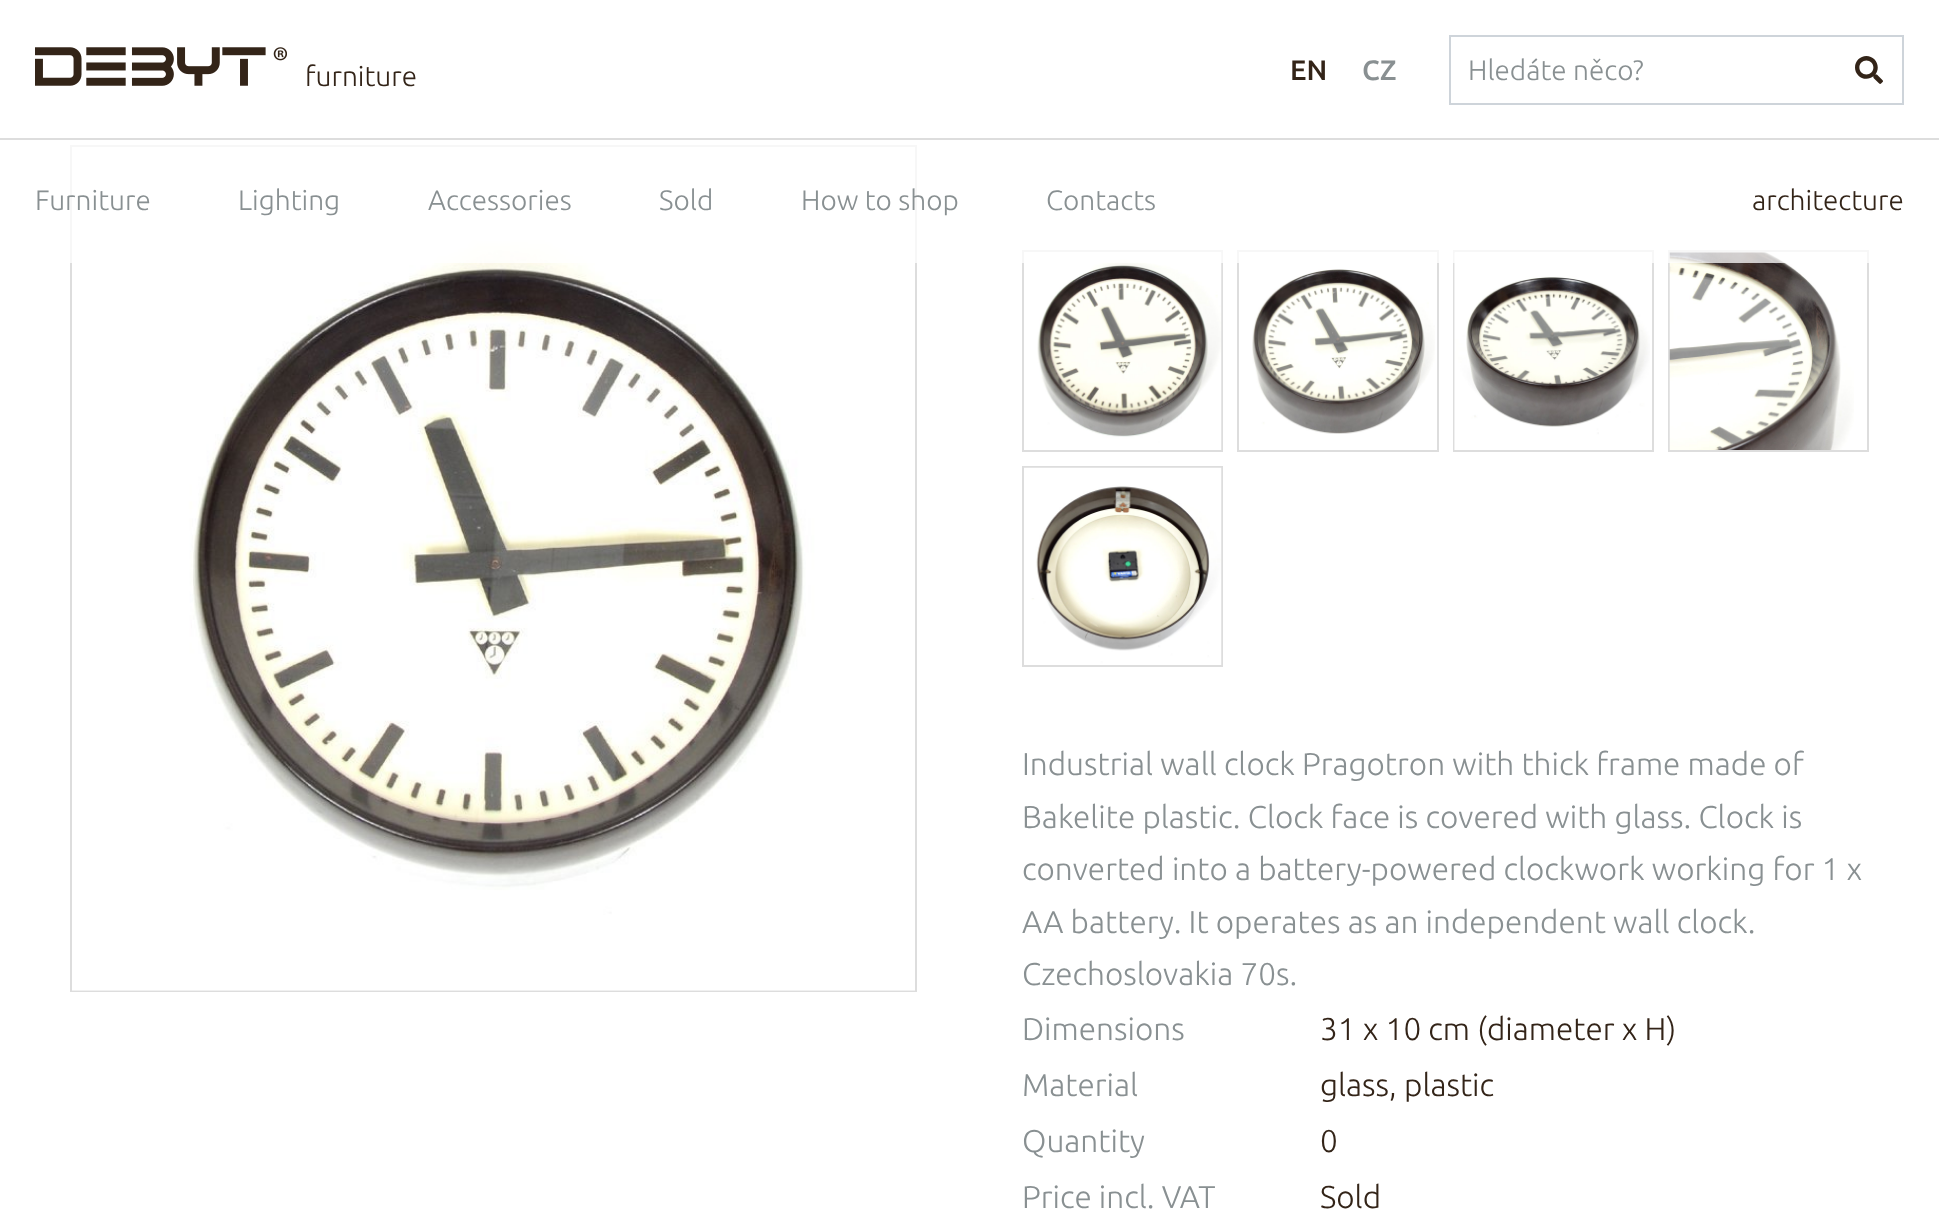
<svg xmlns="http://www.w3.org/2000/svg" width="1939" height="1215" viewBox="0 0 1939 1215">
  <rect width="100%" height="100%" fill="rgb(255,255,255)"/>
  <rect x="0" y="138" width="1939" height="2" fill="rgb(221,221,221)"/>
  <image x="35" y="47" width="252" height="39" href="pic1.png"/>
  <text x="305" y="86" font-family="Ubuntu" font-size="28" font-weight="300" fill="rgb(51,36,24)">furniture</text>
  <text x="1290" y="80" font-family="Ubuntu" font-size="28" font-weight="500" fill="rgb(51,36,24)">EN</text>
  <text x="1362" y="80" font-family="Ubuntu" font-size="28" font-weight="500" fill="rgb(137,144,146)">CZ</text>
  <rect x="1450" y="36" width="453" height="68" fill="none" stroke="rgb(206,212,218)" stroke-width="2"/>
  <text x="1468" y="80" font-family="Ubuntu" font-size="28" font-weight="300" fill="rgb(137,144,146)">Hledáte něco?</text>
  <image x="1855" y="56" width="28" height="28" href="pic2.png"/>
  <rect x="71" y="146" width="845" height="845" fill="none" stroke="rgb(221,221,221)" stroke-width="2"/>
  <image x="72" y="240" width="843" height="751" href="pic3.png"/>
  <rect x="1023" y="251" width="199" height="200" fill="none" stroke="rgb(221,221,221)" stroke-width="2"/>
  <image x="1037" y="252" width="185" height="198" href="pic4.png"/>
  <rect x="1238" y="251" width="200" height="200" fill="none" stroke="rgb(221,221,221)" stroke-width="2"/>
  <rect x="1454" y="251" width="199" height="200" fill="none" stroke="rgb(221,221,221)" stroke-width="2"/>
  <image x="1454" y="252" width="196" height="198" href="pic6.png"/>
  <rect x="1669" y="251" width="199" height="200" fill="none" stroke="rgb(221,221,221)" stroke-width="2"/>
  <image x="1669" y="252" width="185" height="198" href="pic7.png"/>
  <rect x="70" y="145" width="1799" height="118" fill="rgba(255,255,255,0.75)"/>
  <g font-family="Ubuntu" font-size="28" font-weight="300" fill="rgb(137,144,146)">
    <text x="35" y="210">Furniture</text>
    <text x="238" y="210">Lighting</text>
    <text x="428" y="210">Accessories</text>
    <text x="659" y="210">Sold</text>
    <text x="801" y="210">How to shop</text>
    <text x="1046" y="210">Contacts</text>
  </g>
  <text x="1752" y="210" font-family="Ubuntu" font-size="28" font-weight="300" fill="rgb(51,36,24)">architecture</text>
  <image x="1252" y="269" width="183" height="165" href="pic5.png"/>
  <rect x="1023" y="467" width="199" height="199" fill="none" stroke="rgb(221,221,221)" stroke-width="2"/>
  <image x="1024" y="467" width="198" height="198" href="pic8.png"/>
  <g font-family="Ubuntu" font-size="31.5" font-weight="300" fill="rgb(137,144,146)">
    <text>
      <tspan x="1022" y="775">Industrial wall clock Pragotron with thick frame made of</tspan>
      <tspan x="1022" y="828">Bakelite plastic. Clock face is covered with glass. Clock is</tspan>
      <tspan x="1022" y="880">converted into a battery-powered clockwork working for 1 x</tspan>
      <tspan x="1022" y="933">AA battery. It operates as an independent wall clock.</tspan>
      <tspan x="1022" y="985">Czechoslovakia 70s.</tspan>
      <tspan x="1022" y="1040">Dimensions</tspan>
    </text>
  </g>
  <text x="1320" y="1040" font-family="Ubuntu" font-size="31.5" font-weight="300" fill="rgb(51,36,24)">31 x 10 cm (diameter x H)</text>
  <text x="1022" y="1096" font-family="Ubuntu" font-size="31.5" font-weight="300" fill="rgb(137,144,146)">Material</text>
  <text x="1320" y="1096" font-family="Ubuntu" font-size="31.5" font-weight="300" fill="rgb(51,36,24)">glass, plastic</text>
  <text x="1022" y="1152" font-family="Ubuntu" font-size="31.5" font-weight="300" fill="rgb(137,144,146)">Quantity</text>
  <text x="1320" y="1152" font-family="Ubuntu" font-size="31.5" font-weight="300" fill="rgb(51,36,24)">0</text>
  <text x="1022" y="1208" font-family="Ubuntu" font-size="31.5" font-weight="300" fill="rgb(137,144,146)">Price incl. VAT</text>
  <text x="1320" y="1208" font-family="Ubuntu" font-size="31.5" font-weight="300" fill="rgb(51,36,24)">Sold</text>
</svg>
